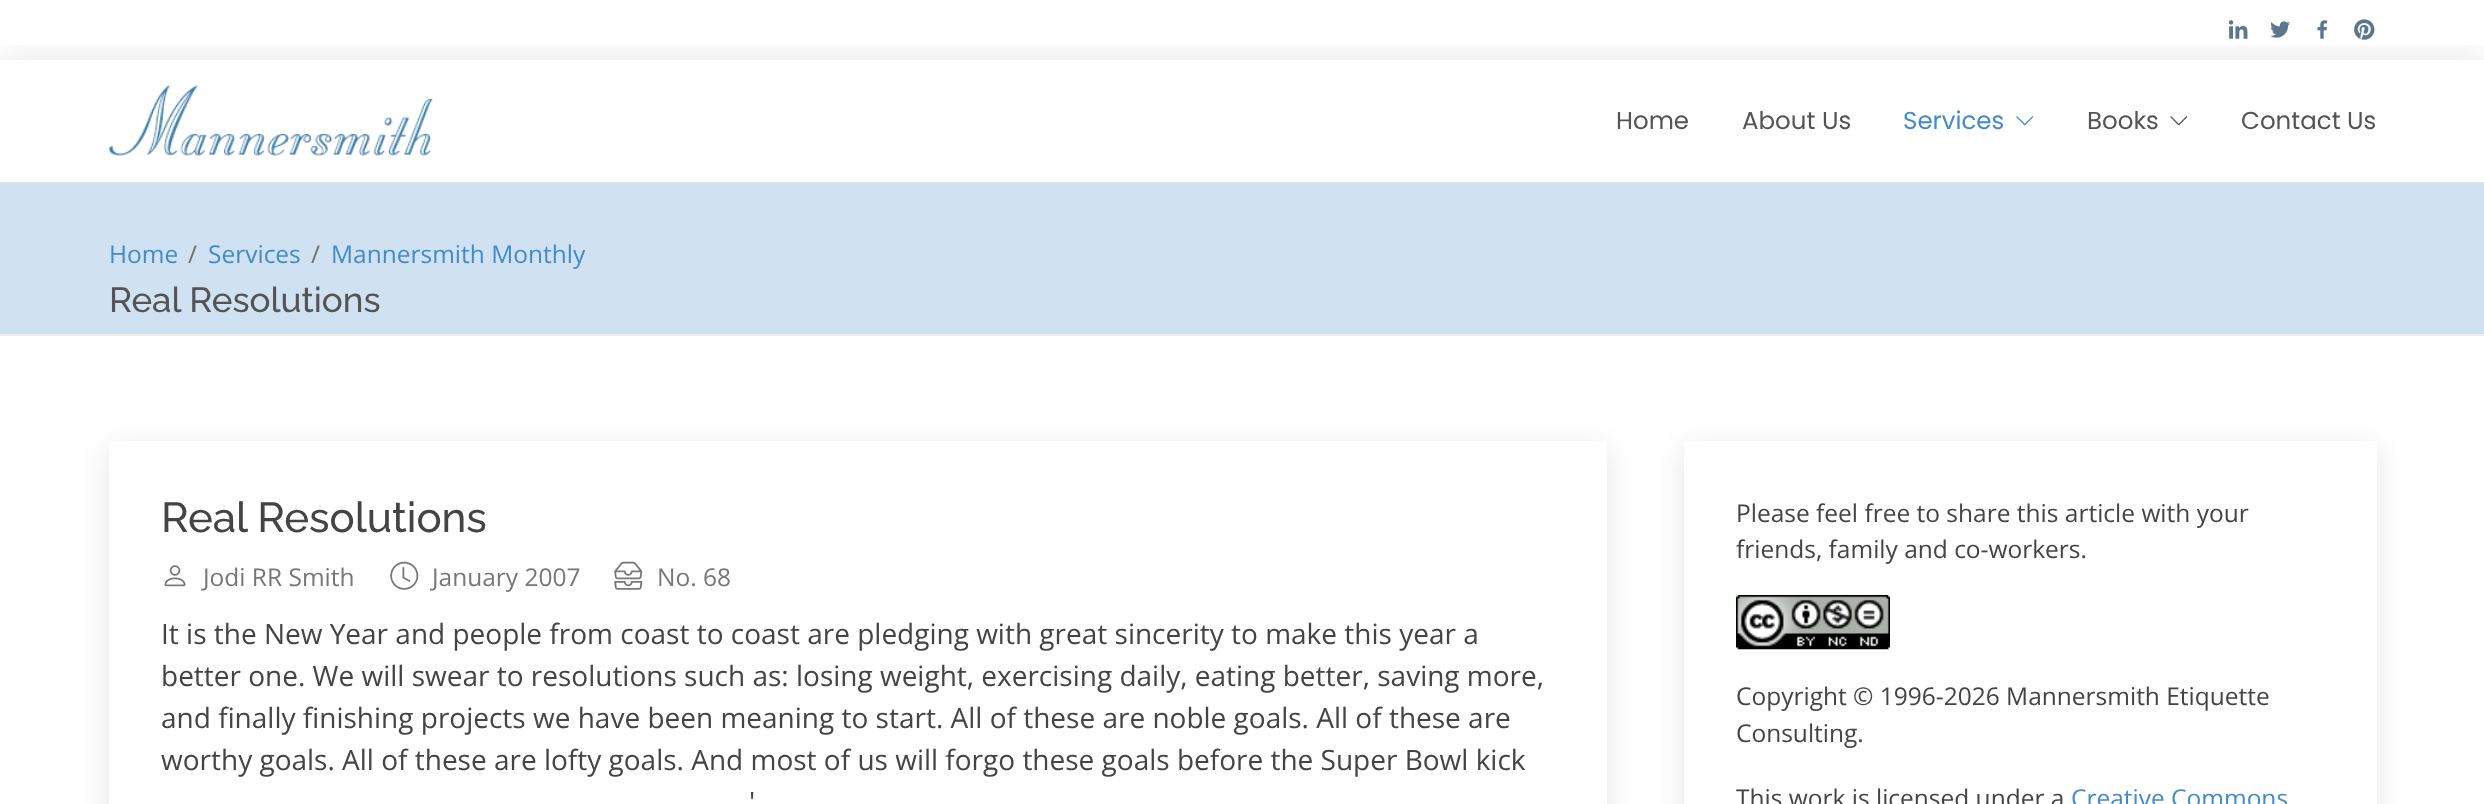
<svg xmlns="http://www.w3.org/2000/svg" width="2484" height="804" viewBox="0 0 2484 804">
  <defs>
    <clipPath id="clip1"><rect x="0" y="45" width="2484" height="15"/></clipPath>
    <clipPath id="clip2"><path d="M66 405H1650V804H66ZM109 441H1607V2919H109Z" clip-rule="evenodd"/></clipPath>
    <clipPath id="clip3"><path d="M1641 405H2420V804H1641ZM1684 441H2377V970H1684Z" clip-rule="evenodd"/></clipPath>
  </defs>
  <rect width="100%" height="100%" fill="rgb(255,255,255)"/>
  <g clip-path="url(#clip1)">
    <rect x="0" y="60" width="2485" height="122" fill="rgba(0,0,0,0.1)" filter="blur(17.5px)"/>
  </g>
  <image x="2228" y="20" width="20" height="19" href="pic1.png"/>
  <image x="2270" y="21" width="20" height="17" href="pic2.png"/>
  <image x="2317" y="20" width="10" height="19" href="pic3.png"/>
  <image x="2354" y="19" width="21" height="21" href="pic4.png"/>
  <image x="108" y="85" width="325" height="71" href="pic5.png"/>
  <g font-family="Poppins" font-size="24.5" fill="rgb(84,84,84)">
    <text x="1616" y="129">Home</text>
    <text x="1742" y="129">About Us</text>
  </g>
  <text x="1903" y="129" font-family="Poppins" font-size="24.5" fill="rgb(66,139,202)">Services</text>
  <image x="2016" y="116" width="18" height="10" href="pic6.png"/>
  <text x="2087" y="129" font-family="Poppins" font-size="24.5" fill="rgb(84,84,84)">Books</text>
  <image x="2170" y="116" width="18" height="10" href="pic7.png"/>
  <text x="2241" y="129" font-family="Poppins" font-size="24.5" fill="rgb(84,84,84)">Contact Us</text>
  <rect x="0" y="182" width="2484" height="152" fill="rgb(208,226,242)"/>
  <rect x="0" y="334" width="2484" height="2" fill="rgb(237,237,237)"/>
  <text x="109" y="263" font-family="Open Sans" font-size="24.5" fill="rgb(66,139,202)">Home</text>
  <text x="188" y="263" font-family="Open Sans" font-size="24.5" fill="rgb(110,110,110)">/</text>
  <text x="208" y="263" font-family="Open Sans" font-size="24.5" fill="rgb(66,139,202)">Services</text>
  <text x="311" y="263" font-family="Open Sans" font-size="24.5" fill="rgb(110,110,110)">/</text>
  <text x="331" y="263" font-family="Open Sans" font-size="24.5" fill="rgb(66,139,202)">Mannersmith Monthly</text>
  <text x="109" y="312" font-family="Raleway" font-size="35" font-weight="500" fill="rgb(84,84,84)">Real Resolutions</text>
  <g clip-path="url(#clip2)">
    <rect x="109" y="448" width="1498" height="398" fill="rgba(0,0,0,0.1)" filter="blur(14px)"/>
  </g>
  <text x="161" y="532" font-family="Raleway" font-size="42" font-weight="500" fill="rgb(68,68,68)">Real Resolutions</text>
  <image x="164" y="565" width="22" height="22" href="pic8.png"/>
  <text x="203" y="586" font-family="Open Sans" font-size="24.5" fill="rgb(119,119,119)">Jodi RR Smith</text>
  <image x="390" y="561" width="29" height="29" href="pic9.png"/>
  <text x="432" y="586" font-family="Open Sans" font-size="24.5" fill="rgb(119,119,119)">January 2007</text>
  <image x="614" y="561" width="29" height="29" href="pic10.png"/>
  <text x="657" y="586" font-family="Open Sans" font-size="24.5" fill="rgb(119,119,119)">No. 68</text>
  <g font-family="Open Sans" font-size="28" fill="rgb(68,68,68)">
    <text>
      <tspan x="161" y="644">It is the New Year and people from coast to coast are pledging with great sincerity to make this year a</tspan>
      <tspan x="161" y="686">better one. We will swear to resolutions such as: losing weight, exercising daily, eating better, saving more,</tspan>
      <tspan x="161" y="728">and finally finishing projects we have been meaning to start. All of these are noble goals. All of these are</tspan>
      <tspan x="161" y="770">worthy goals. All of these are lofty goals. And most of us will forgo these goals before the Super Bowl kick</tspan>
    </text>
    <text x="749" y="812">'</text>
  </g>
  <g clip-path="url(#clip3)">
    <rect x="1684" y="448" width="693" height="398" fill="rgba(0,0,0,0.1)" filter="blur(14px)"/>
  </g>
  <g font-family="Open Sans" font-size="24.5" fill="rgb(68,68,68)">
    <text>
      <tspan x="1736" y="522">Please feel free to share this article with your</tspan>
      <tspan x="1736" y="558">friends, family and co-workers.</tspan>
    </text>
  </g>
  <image x="1736" y="595" width="154" height="55" href="pic11.png"/>
  <g font-family="Open Sans" font-size="24.5" fill="rgb(68,68,68)">
    <text>
      <tspan x="1736" y="705">Copyright © 1996-2026 Mannersmith Etiquette</tspan>
      <tspan x="1736" y="742">Consulting.</tspan>
    </text>
    <text x="1736" y="807">This work is licensed under a</text>
  </g>
  <text x="2071" y="807" font-family="Open Sans" font-size="24.5" fill="rgb(66,139,202)">Creative Commons</text>
</svg>
